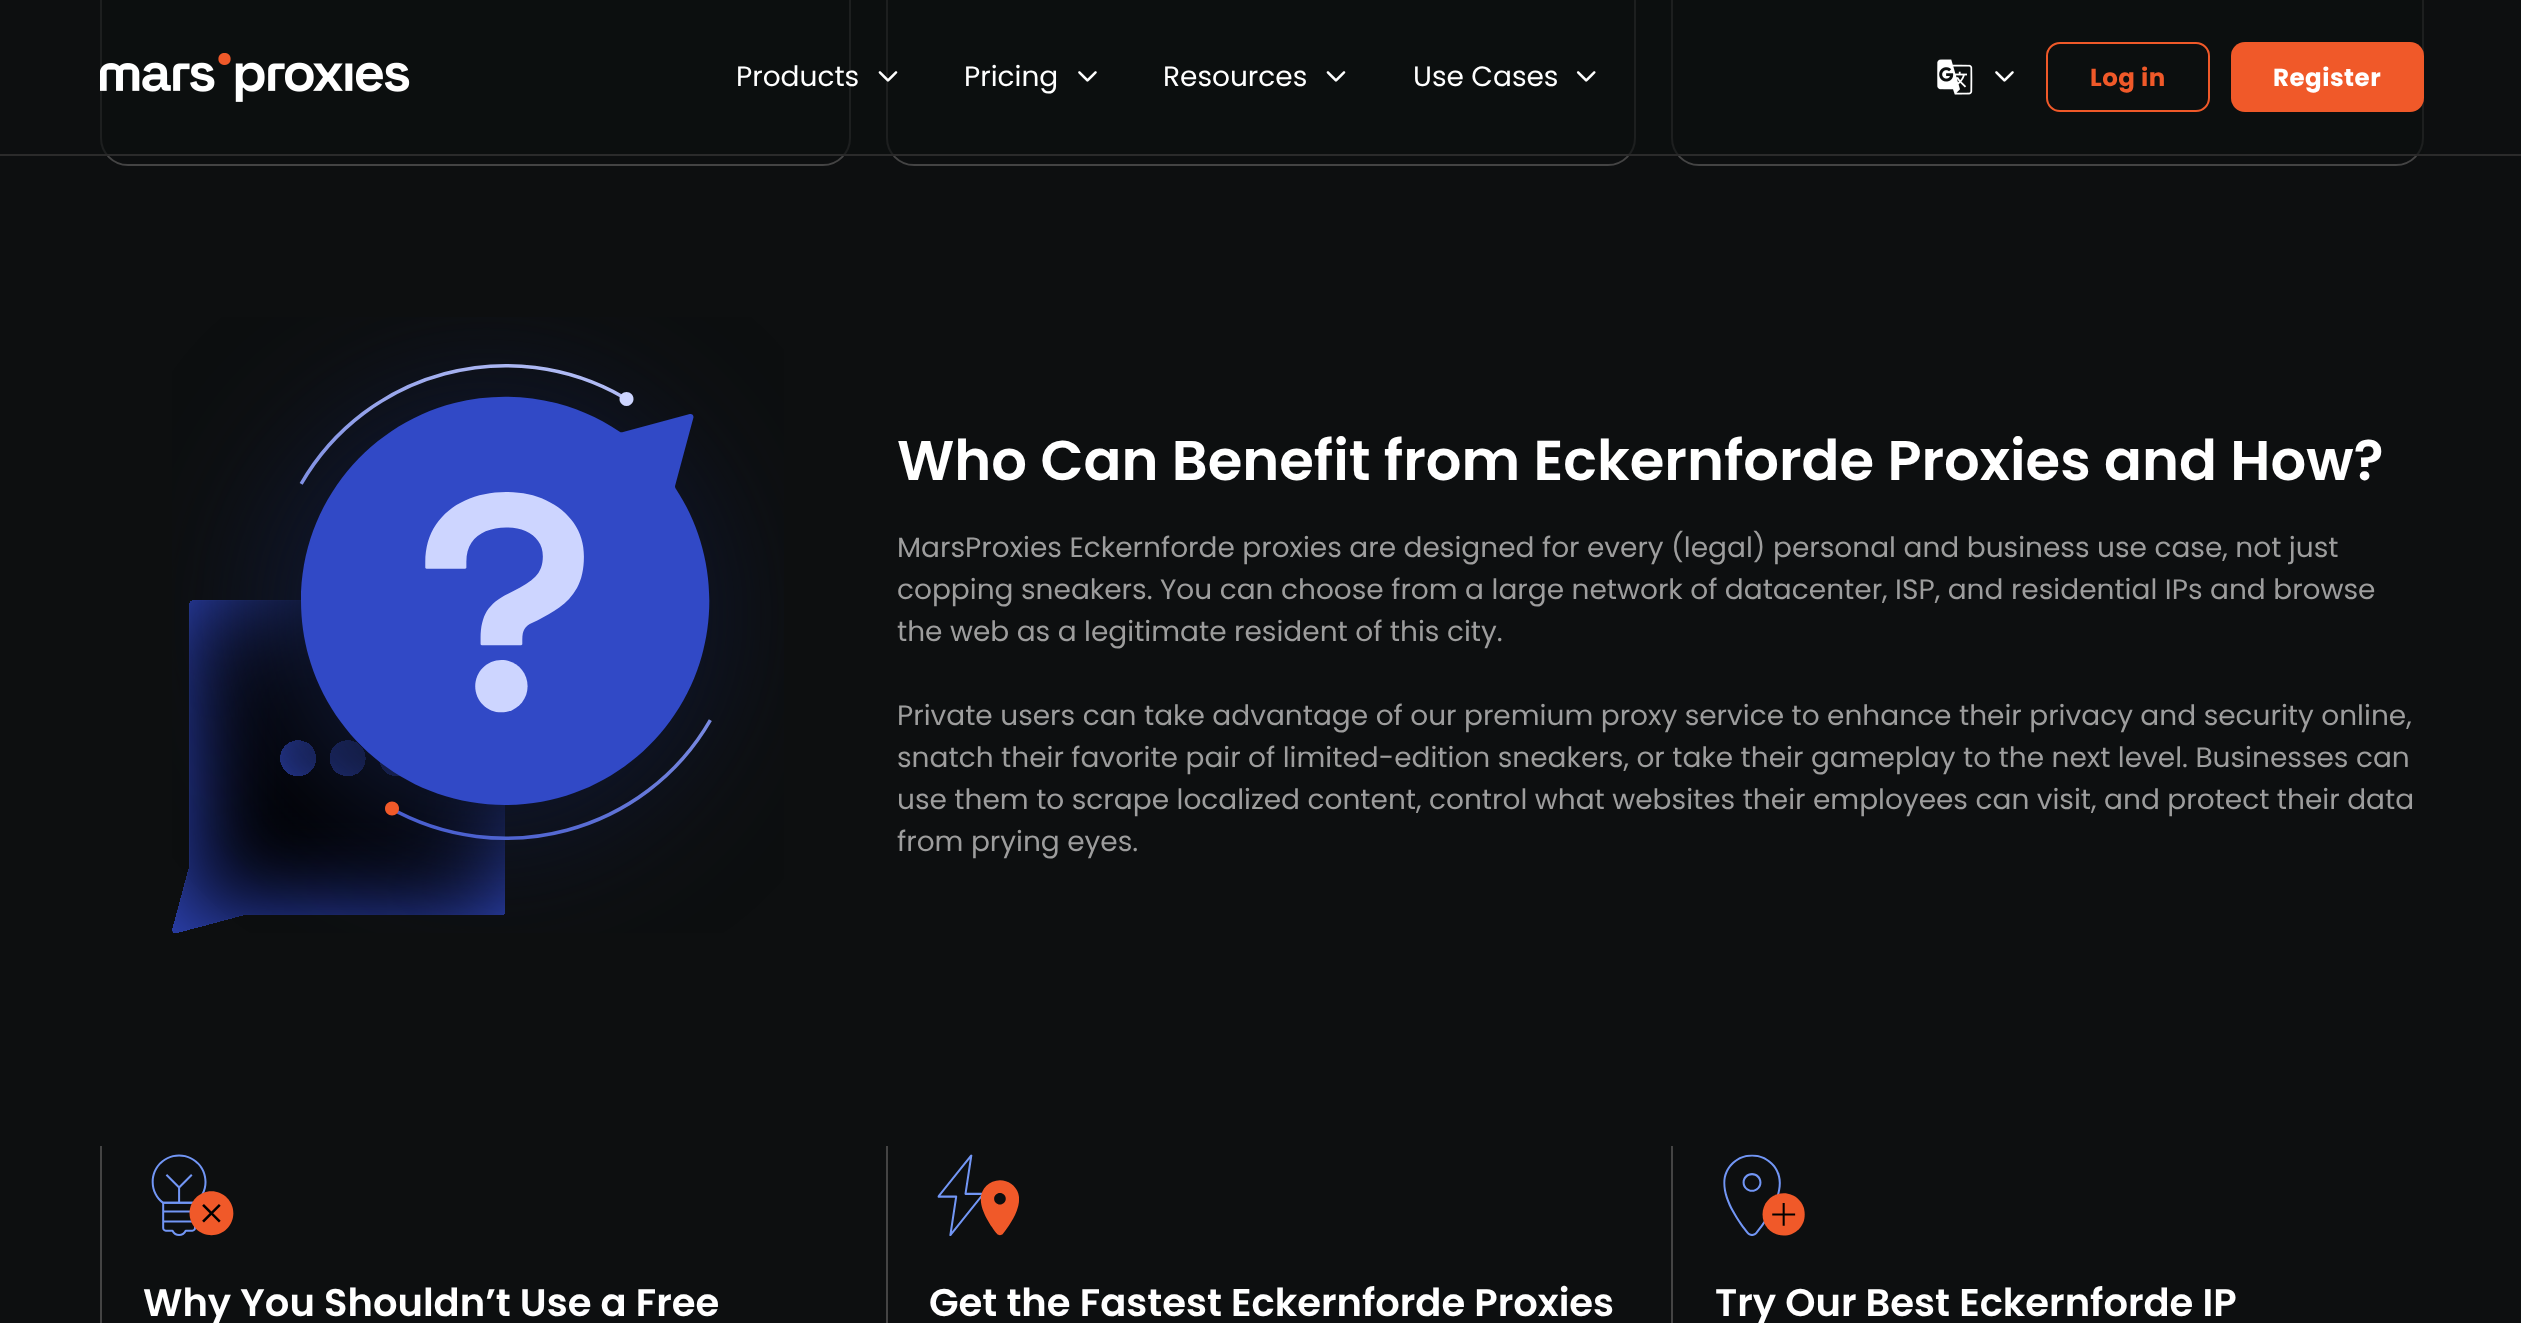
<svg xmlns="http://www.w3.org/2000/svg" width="2521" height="1323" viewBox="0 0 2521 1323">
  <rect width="100%" height="100%" fill="rgb(13,15,16)"/>
  <rect x="101" y="-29" width="749" height="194" rx="27" fill="none" stroke="rgb(68,68,68)" stroke-width="2"/>
  <rect x="887" y="-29" width="748" height="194" rx="27" fill="none" stroke="rgb(68,68,68)" stroke-width="2"/>
  <rect x="1672" y="-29" width="751" height="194" rx="27" fill="none" stroke="rgb(68,68,68)" stroke-width="2"/>
  <rect x="100" y="0" width="2324" height="154" fill="rgba(13,15,16,0.7)"/>
  <rect x="0" y="154" width="2521" height="2" fill="rgb(43,43,43)"/>
  <image x="100" y="53" width="310" height="49" href="pic1.png"/>
  <text x="736" y="86" font-family="Poppins" font-size="28" fill="rgb(255,255,255)">Products</text>
  <image x="878" y="71" width="20" height="11" href="pic2.png"/>
  <text x="964" y="86" font-family="Poppins" font-size="28" fill="rgb(255,255,255)">Pricing</text>
  <image x="1078" y="71" width="19" height="11" href="pic3.png"/>
  <text x="1163" y="86" font-family="Poppins" font-size="28" fill="rgb(255,255,255)">Resources</text>
  <image x="1326" y="71" width="20" height="11" href="pic4.png"/>
  <text x="1413" y="86" font-family="Poppins" font-size="28" fill="rgb(255,255,255)">Use Cases</text>
  <image x="1576" y="71" width="20" height="11" href="pic5.png"/>
  <image x="1937" y="59" width="36" height="36" href="pic6.png"/>
  <image x="1995" y="71" width="19" height="11" href="pic3.png"/>
  <rect x="2047" y="43" width="162" height="68" rx="13" fill="none" stroke="rgb(240,89,41)" stroke-width="2"/>
  <text x="2090" y="86" font-family="Poppins" font-size="24.5" font-weight="bold" letter-spacing="0.5" fill="rgb(240,89,41)">Log in</text>
  <rect x="2231" y="42" width="193" height="70" rx="14" fill="rgb(240,89,41)"/>
  <text x="2273" y="86" font-family="Poppins" font-size="24.5" font-weight="bold" letter-spacing="0.5" fill="rgb(255,255,255)">Register</text>
  <image x="172" y="317" width="612" height="616" href="pic7.png"/>
  <text x="897" y="480" font-family="Poppins" font-size="56" font-weight="600" fill="rgb(255,255,255)">Who Can Benefit from Eckernforde Proxies and How?</text>
  <g font-family="Poppins" font-size="28" fill="rgb(157,157,157)">
    <text>
      <tspan x="897" y="557">MarsProxies Eckernforde proxies are designed for every (legal) personal and business use case, not just</tspan>
      <tspan x="897" y="599">copping sneakers. You can choose from a large network of datacenter, ISP, and residential IPs and browse</tspan>
      <tspan x="897" y="641">the web as a legitimate resident of this city.</tspan>
    </text>
    <text>
      <tspan x="897" y="725">Private users can take advantage of our premium proxy service to enhance their privacy and security online,</tspan>
      <tspan x="897" y="767">snatch their favorite pair of limited-edition sneakers, or take their gameplay to the next level. Businesses can</tspan>
      <tspan x="897" y="809">use them to scrape localized content, control what websites their employees can visit, and protect their data</tspan>
      <tspan x="897" y="851">from prying eyes.</tspan>
    </text>
  </g>
  <rect x="100" y="1146" width="2" height="177" fill="rgb(68,68,68)"/>
  <image x="151" y="1154" width="83" height="82" href="pic8.png"/>
  <text x="143" y="1316" font-family="Poppins" font-size="38.5" font-weight="600" fill="rgb(255,255,255)">Why You Shouldn’t Use a Free</text>
  <rect x="886" y="1146" width="2" height="177" fill="rgb(68,68,68)"/>
  <image x="937" y="1154" width="82" height="82" href="pic9.png"/>
  <text x="929" y="1316" font-family="Poppins" font-size="38.5" font-weight="600" fill="rgb(255,255,255)">Get the Fastest Eckernforde Proxies</text>
  <rect x="1671" y="1146" width="2" height="177" fill="rgb(68,68,68)"/>
  <image x="1723" y="1154" width="82" height="82" href="pic10.png"/>
  <text x="1715" y="1316" font-family="Poppins" font-size="38.5" font-weight="600" fill="rgb(255,255,255)">Try Our Best Eckernforde IP</text>
</svg>
